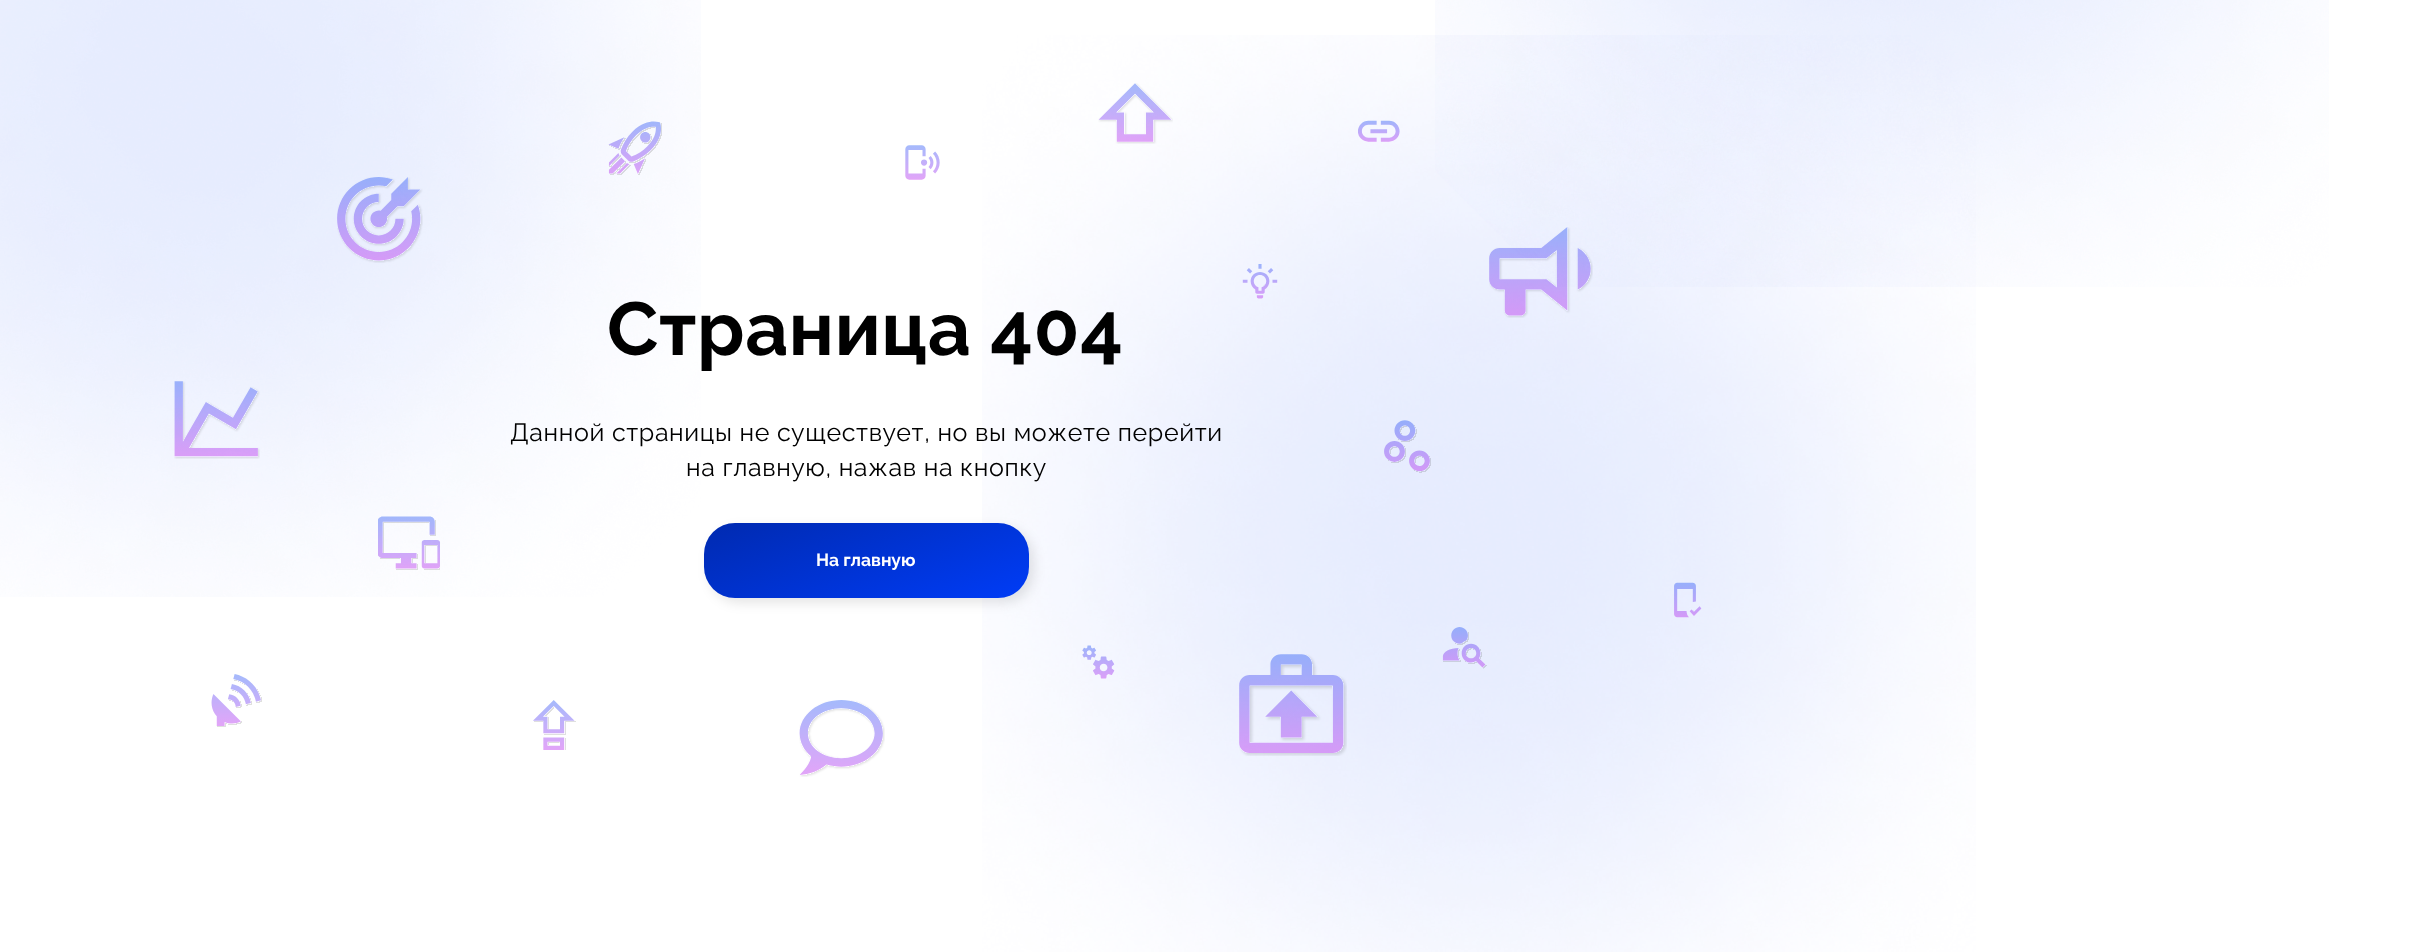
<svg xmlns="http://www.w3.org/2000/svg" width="2423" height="952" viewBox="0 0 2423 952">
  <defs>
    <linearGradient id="g1" gradientUnits="userSpaceOnUse" x1="835" y1="475" x2="897" y2="645"><stop offset="0" stop-color="rgb(0,42,176)"/><stop offset="1" stop-color="rgb(0,60,246)"/></linearGradient>
  </defs>
  <rect width="100%" height="100%" fill="rgb(255,255,255)"/>
  <image x="0" y="0" width="701" height="597" href="pic1.png"/>
  <image x="1435" y="0" width="894" height="287" href="pic2.png"/>
  <image x="982" y="35" width="994" height="917" href="pic3.png"/>
  <image x="608" y="121" width="54" height="54" href="pic4.png"/>
  <image x="905" y="145" width="35" height="35" href="pic5.png"/>
  <image x="1098" y="83" width="75" height="61" href="pic6.png"/>
  <image x="1358" y="120" width="42" height="22" href="pic7.png"/>
  <image x="337" y="177" width="86" height="86" href="pic8.png"/>
  <image x="1242" y="264" width="36" height="35" href="pic9.png"/>
  <image x="1489" y="227" width="104" height="91" href="pic10.png"/>
  <text x="607" y="355" font-family="Raleway" font-size="75" font-weight="bold" letter-spacing="0.62" fill="rgb(0,0,0)">Страница 404</text>
  <image x="174" y="381" width="86" height="78" href="pic11.png"/>
  <g font-family="Raleway" font-size="25" letter-spacing="0.62" fill="rgb(0,0,0)">
    <text x="510" y="441">Данной страницы не существует, но вы можете перейти</text>
    <text x="686" y="476">на главную, нажав на кнопку</text>
  </g>
  <image x="1384" y="420" width="47" height="53" href="pic12.png"/>
  <image x="378" y="516" width="62" height="54" href="pic13.png"/>
  <rect x="709" y="528" width="325" height="75" rx="31" fill="rgba(0,0,0,0.1)" filter="blur(6px)"/>
  <rect x="704" y="523" width="325" height="75" rx="31" fill="url(#g1)"/>
  <text x="816" y="566" font-family="Raleway" font-size="17.5" font-weight="bold" fill="rgb(255,255,255)">На главную</text>
  <image x="1674" y="582" width="28" height="36" href="pic14.png"/>
  <image x="211" y="674" width="51" height="53" href="pic15.png"/>
  <image x="533" y="700" width="43" height="50" href="pic16.png"/>
  <image x="799" y="700" width="86" height="77" href="pic17.png"/>
  <image x="1082" y="645" width="33" height="34" href="pic18.png"/>
  <image x="1239" y="654" width="108" height="102" href="pic19.png"/>
  <image x="1442" y="627" width="45" height="42" href="pic20.png"/>
</svg>
